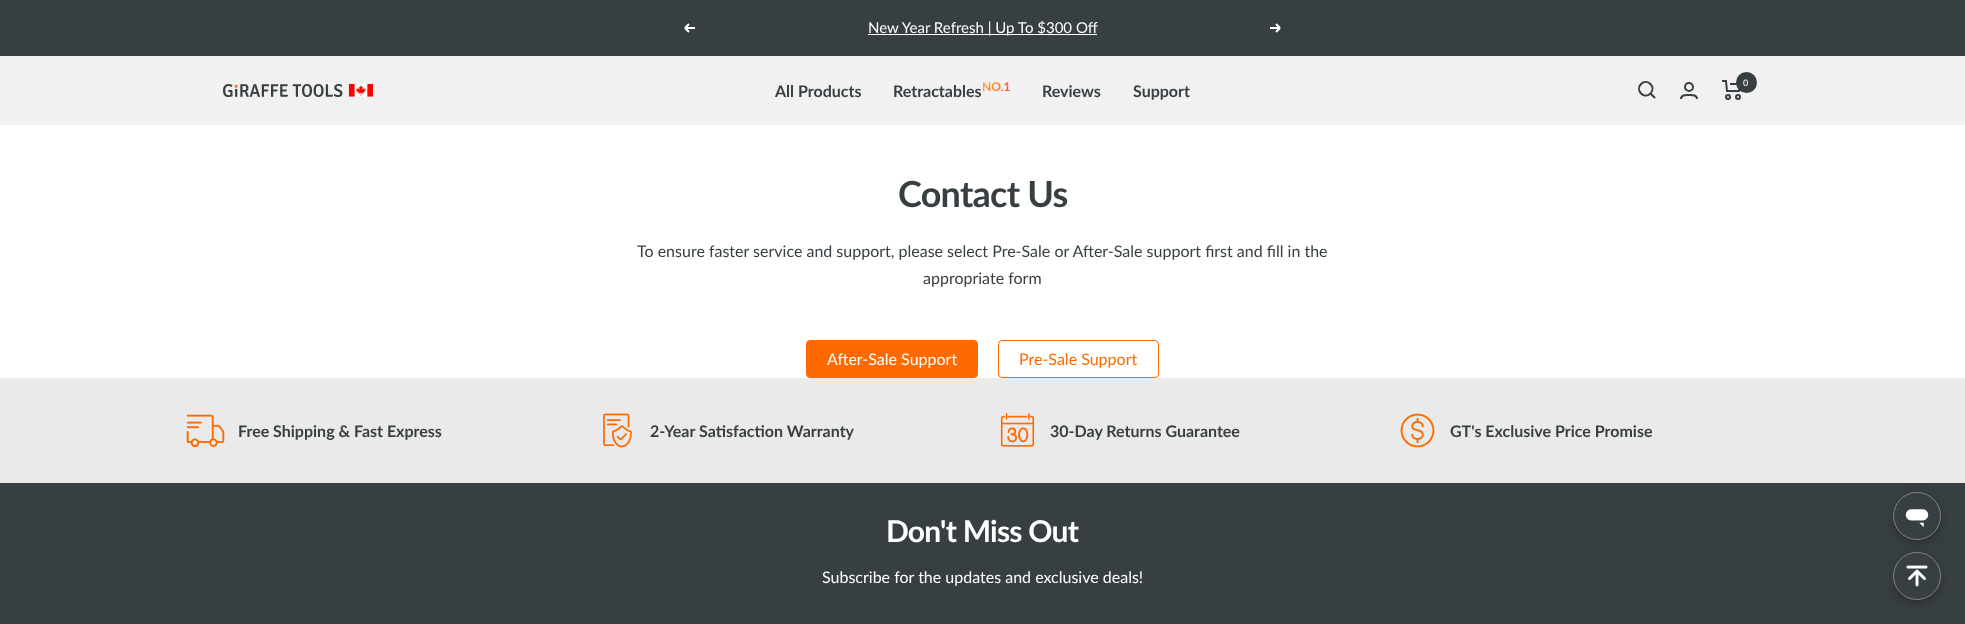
<svg xmlns="http://www.w3.org/2000/svg" width="1965" height="624" viewBox="0 0 1965 624">
  <defs>
    <linearGradient id="g1" gradientUnits="userSpaceOnUse" x1="983" y1="77" x2="1009" y2="95"><stop offset="0.07" stop-color="rgb(255,174,57)"/><stop offset="0.94" stop-color="rgb(255,82,48)"/></linearGradient>
  </defs>
  <rect width="100%" height="100%" fill="rgb(255,255,255)"/>
  <rect x="0" y="0" width="1965" height="56" fill="rgb(56,63,66)"/>
  <path d="M695 28H685M685 28L689 32M685 28L689 24" fill="none" stroke="rgb(255,255,255)" stroke-width="2"/>
  <rect x="868" y="34" width="229" height="1" fill="rgb(255,255,255)"/>
  <text x="868" y="33" font-family="Lato" font-size="15" fill="rgb(255,255,255)">New Year Refresh | Up To $300 Off</text>
  <path d="M1270 28H1280M1280 28L1276 32M1280 28L1276 24" fill="none" stroke="rgb(255,255,255)" stroke-width="2"/>
  <rect x="0" y="56" width="1965" height="69" fill="rgb(241,241,241)"/>
  <image x="223" y="84" width="150" height="13" href="pic1.png"/>
  <g font-family="Lato" font-size="16" font-weight="bold" fill="rgb(56,63,66)">
    <text x="775" y="97">All Products</text>
    <text x="893" y="97">Retractables</text>
  </g>
  <text x="982" y="91" font-family="Lato" font-size="12" font-weight="bold" fill="url(#g1)">NO.1</text>
  <g font-family="Lato" font-size="16" font-weight="bold" fill="rgb(56,63,66)">
    <text x="1042" y="97">Reviews</text>
    <text x="1133" y="97">Support</text>
  </g>
  <path d="M1650.5 93.5C1656.5 87 1647.5 78 1641 84C1635 90.5 1644 99.5 1650.5 93.5ZM1650.5 93.5L1655 98" fill="none" stroke="rgb(56,63,66)" stroke-width="2"/>
  <circle cx="1689" cy="87" r="4" fill="none" stroke="rgb(56,63,66)" stroke-width="2"/>
  <path d="M1681 99C1681 94.5 1686 95 1689 95C1692 95 1697 94.5 1697 99M1722 81H1726L1727 91H1739L1741 84H1730" fill="none" stroke="rgb(56,63,66)" stroke-width="2"/>
  <circle cx="1746.5" cy="82.5" r="10.5" fill="rgb(56,63,66)"/>
  <text x="1743" y="86" font-family="Lato" font-size="9" font-weight="600" fill="rgb(241,241,241)">0</text>
  <circle cx="1728" cy="97" r="2" fill="none" stroke="rgb(56,63,66)" stroke-width="2"/>
  <circle cx="1738" cy="97" r="2" fill="none" stroke="rgb(56,63,66)" stroke-width="2"/>
  <text x="898" y="207" font-family="Lato" font-size="36" font-weight="bold" letter-spacing="-0.75" fill="rgb(56,63,66)">Contact Us</text>
  <g font-family="Lato" font-size="16" fill="rgb(56,63,66)">
    <text x="637" y="257">To ensure faster service and support, please select Pre-Sale or After-Sale support first and fill in the</text>
    <text x="923" y="284">appropriate form</text>
  </g>
  <rect x="806.5" y="340.5" width="171" height="37" rx="3.5" fill="rgb(255,105,0)" stroke="rgb(255,105,0)"/>
  <text x="827" y="365" font-family="Lato" font-size="16" fill="rgb(255,255,255)">After-Sale Support</text>
  <rect x="998.5" y="340.5" width="160" height="37" rx="3.5" fill="none" stroke="rgb(255,105,0)"/>
  <text x="1019" y="365" font-family="Lato" font-size="16" fill="rgb(255,105,0)">Pre-Sale Support</text>
  <rect x="0" y="378" width="1965" height="105" fill="rgb(234,234,234)"/>
  <image x="186" y="414" width="39" height="34" href="pic2.png"/>
  <text x="238" y="437" font-family="Lato" font-size="16" font-weight="bold" fill="rgb(56,63,66)">Free Shipping &amp; Fast Express</text>
  <image x="603" y="413" width="29" height="35" href="pic3.png"/>
  <text x="650" y="437" font-family="Lato" font-size="16" font-weight="bold" fill="rgb(56,63,66)">2-Year Satisfaction Warranty</text>
  <image x="1000" y="413" width="35" height="34" href="pic4.png"/>
  <text x="1050" y="437" font-family="Lato" font-size="16" font-weight="bold" fill="rgb(56,63,66)">30-Day Returns Guarantee</text>
  <image x="1400" y="413" width="35" height="35" href="pic5.png"/>
  <text x="1450" y="437" font-family="Lato" font-size="16" font-weight="bold" fill="rgb(56,63,66)">GT's Exclusive Price Promise</text>
  <rect x="0" y="483" width="1965" height="141" fill="rgb(56,63,66)"/>
  <text x="886" y="542" font-family="Lato" font-size="30" font-weight="bold" letter-spacing="-0.75" fill="rgb(255,255,255)">Don't Miss Out</text>
  <text x="822" y="583" font-family="Lato" font-size="16" fill="rgb(255,255,255)">Subscribe for the updates and exclusive deals!</text>
  <rect x="1893" y="496" width="48" height="48" rx="24" fill="rgba(0,0,0,0.25)" filter="blur(5px)"/>
  <circle cx="1917" cy="516" r="23.5" fill="rgb(56,63,66)" stroke="rgb(129,129,129)"/>
  <image x="1905" y="509" width="24" height="18" href="pic6.png"/>
  <rect x="1893" y="556" width="48" height="48" rx="24" fill="rgba(0,0,0,0.25)" filter="blur(5px)"/>
  <circle cx="1917" cy="576" r="23.5" fill="rgb(56,63,66)" stroke="rgb(129,129,129)"/>
  <image x="1906" y="565" width="22" height="22" href="pic7.png"/>
</svg>
